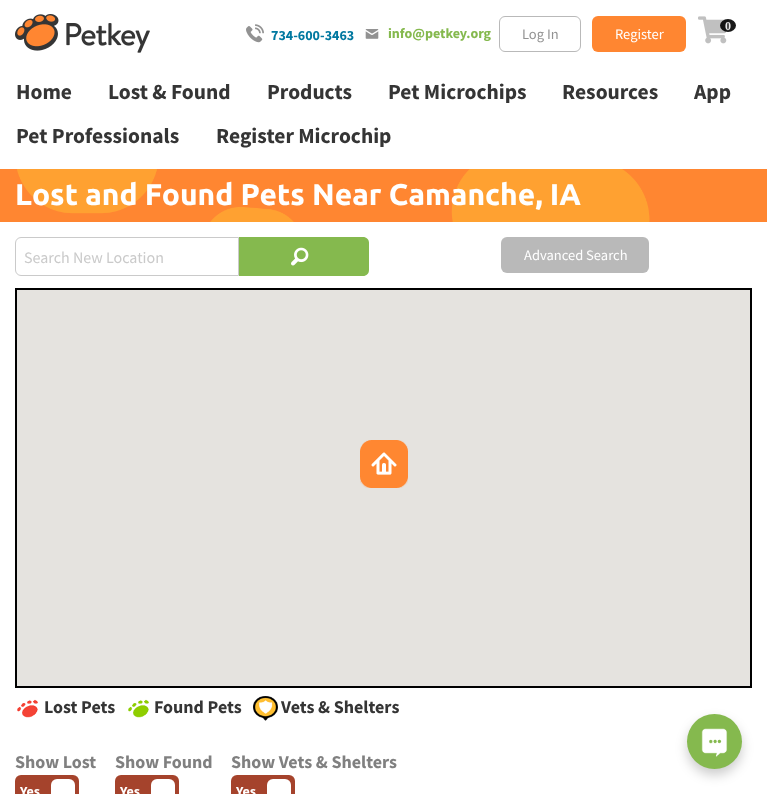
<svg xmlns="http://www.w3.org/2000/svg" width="767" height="794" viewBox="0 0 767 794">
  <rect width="100%" height="100%" fill="rgb(255,255,255)"/>
  <image x="15" y="14" width="135" height="39" href="pic1.png"/>
  <image x="246" y="24" width="18" height="19" href="pic2.png"/>
  <text x="271" y="40" font-family="Source Sans Pro" font-size="14" font-weight="bold" fill="rgb(0,120,160)">734-600-3463</text>
  <image x="365" y="29" width="14" height="10" href="pic3.png"/>
  <text x="388" y="38" font-family="Source Sans Pro" font-size="14" font-weight="bold" fill="rgb(133,185,78)">info@petkey.org</text>
  <image x="698" y="16" width="31" height="28" href="pic4.png"/>
  <ellipse cx="728" cy="25.5" rx="8" ry="6.5" fill="rgba(0,0,0,0.9)"/>
  <text x="725" y="30" font-family="Liberation Serif" font-size="12" font-weight="bold" fill="rgb(232,232,232)">0</text>
  <rect x="499.5" y="16.5" width="81" height="35" rx="5.5" fill="none" stroke="rgb(185,185,185)"/>
  <text x="522" y="39" font-family="Source Sans Pro" font-size="14.5" fill="rgb(146,146,146)">Log In</text>
  <rect x="592" y="16" width="94" height="36" rx="6" fill="rgb(255,134,49)"/>
  <text x="615" y="39" font-family="Source Sans Pro" font-size="14.5" fill="rgb(255,255,255)">Register</text>
  <g font-family="Source Sans Pro" font-size="21.5" font-weight="bold" fill="rgb(53,53,53)">
    <text x="16" y="99">Home</text>
    <text x="108" y="99">Lost &amp; Found</text>
    <text x="267" y="99">Products</text>
    <text x="388" y="99">Pet Microchips</text>
    <text x="562" y="99">Resources</text>
    <text x="694" y="99">App</text>
    <text x="16" y="143">Pet Professionals</text>
    <text x="216" y="143">Register Microchip</text>
  </g>
  <rect x="0" y="169" width="767" height="53" fill="rgb(255,134,49)"/>
  <image x="17" y="169" width="633" height="53" href="pic5.png"/>
  <text x="15" y="205" font-family="Ubuntu" font-size="30" font-weight="bold" fill="rgb(255,255,255)">Lost and Found Pets Near Camanche, IA</text>
  <path d="M21 237.5H238.5V275.5H21C18 275.5 15.5 273 15.5 270V243C15.5 240 18 237.5 21 237.5Z" fill="none" stroke="rgb(202,202,202)"/>
  <text x="24" y="263" font-family="Source Sans Pro" font-size="16" fill="rgb(202,202,202)">Search New Location</text>
  <path d="M239 237H363C366.5 237 369 239.5 369 243V270C369 273.5 366.5 276 363 276H239Z" fill="rgb(133,185,78)"/>
  <image x="291" y="247" width="18" height="19" href="pic6.png"/>
  <rect x="501" y="237" width="148" height="36" rx="6" fill="rgb(185,185,185)"/>
  <text x="524" y="260" font-family="Source Sans Pro" font-size="14.5" fill="rgb(255,255,255)">Advanced Search</text>
  <rect x="16" y="289" width="735" height="398" fill="none" stroke="rgb(0,0,0)" stroke-width="2"/>
  <rect x="17" y="290" width="733" height="396" fill="rgb(229,227,223)"/>
  <image x="360" y="440" width="48" height="48" href="pic7.png"/>
  <image x="17" y="699" width="21" height="19" href="pic8.png"/>
  <text x="44" y="713" font-family="Source Sans Pro" font-size="18" font-weight="bold" fill="rgb(53,53,53)">Lost Pets</text>
  <image x="128" y="699" width="21" height="19" href="pic9.png"/>
  <text x="154" y="713" font-family="Source Sans Pro" font-size="18" font-weight="bold" fill="rgb(53,53,53)">Found Pets</text>
  <image x="253" y="696" width="25" height="25" href="pic10.png"/>
  <text x="281" y="713" font-family="Source Sans Pro" font-size="18" font-weight="bold" fill="rgb(53,53,53)">Vets &amp; Shelters</text>
  <text x="15" y="768" font-family="Source Sans Pro" font-size="18" font-weight="bold" fill="rgb(128,128,128)">Show Lost</text>
  <rect x="15" y="775" width="64" height="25" rx="6" fill="rgb(165,67,44)"/>
  <text x="20" y="796" font-family="Source Sans Pro" font-size="14" font-weight="bold" fill="rgb(255,255,255)">Yes</text>
  <rect x="51" y="779" width="24" height="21" rx="6" fill="rgb(255,255,255)"/>
  <text x="115" y="768" font-family="Source Sans Pro" font-size="18" font-weight="bold" fill="rgb(128,128,128)">Show Found</text>
  <rect x="115" y="775" width="64" height="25" rx="6" fill="rgb(165,67,44)"/>
  <text x="120" y="796" font-family="Source Sans Pro" font-size="14" font-weight="bold" fill="rgb(255,255,255)">Yes</text>
  <rect x="151" y="779" width="24" height="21" rx="6" fill="rgb(255,255,255)"/>
  <text x="231" y="768" font-family="Source Sans Pro" font-size="18" font-weight="bold" fill="rgb(128,128,128)">Show Vets &amp; Shelters</text>
  <rect x="231" y="775" width="64" height="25" rx="6" fill="rgb(165,67,44)"/>
  <text x="236" y="796" font-family="Source Sans Pro" font-size="14" font-weight="bold" fill="rgb(255,255,255)">Yes</text>
  <rect x="267" y="779" width="24" height="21" rx="6" fill="rgb(255,255,255)"/>
  <rect x="687" y="720" width="55" height="55" rx="27.5" fill="rgba(0,0,0,0.2)" filter="blur(6px)"/>
  <circle cx="714.5" cy="741.5" r="27.5" fill="rgb(133,185,78)"/>
  <image x="701" y="728" width="27" height="29" href="pic11.png"/>
</svg>
